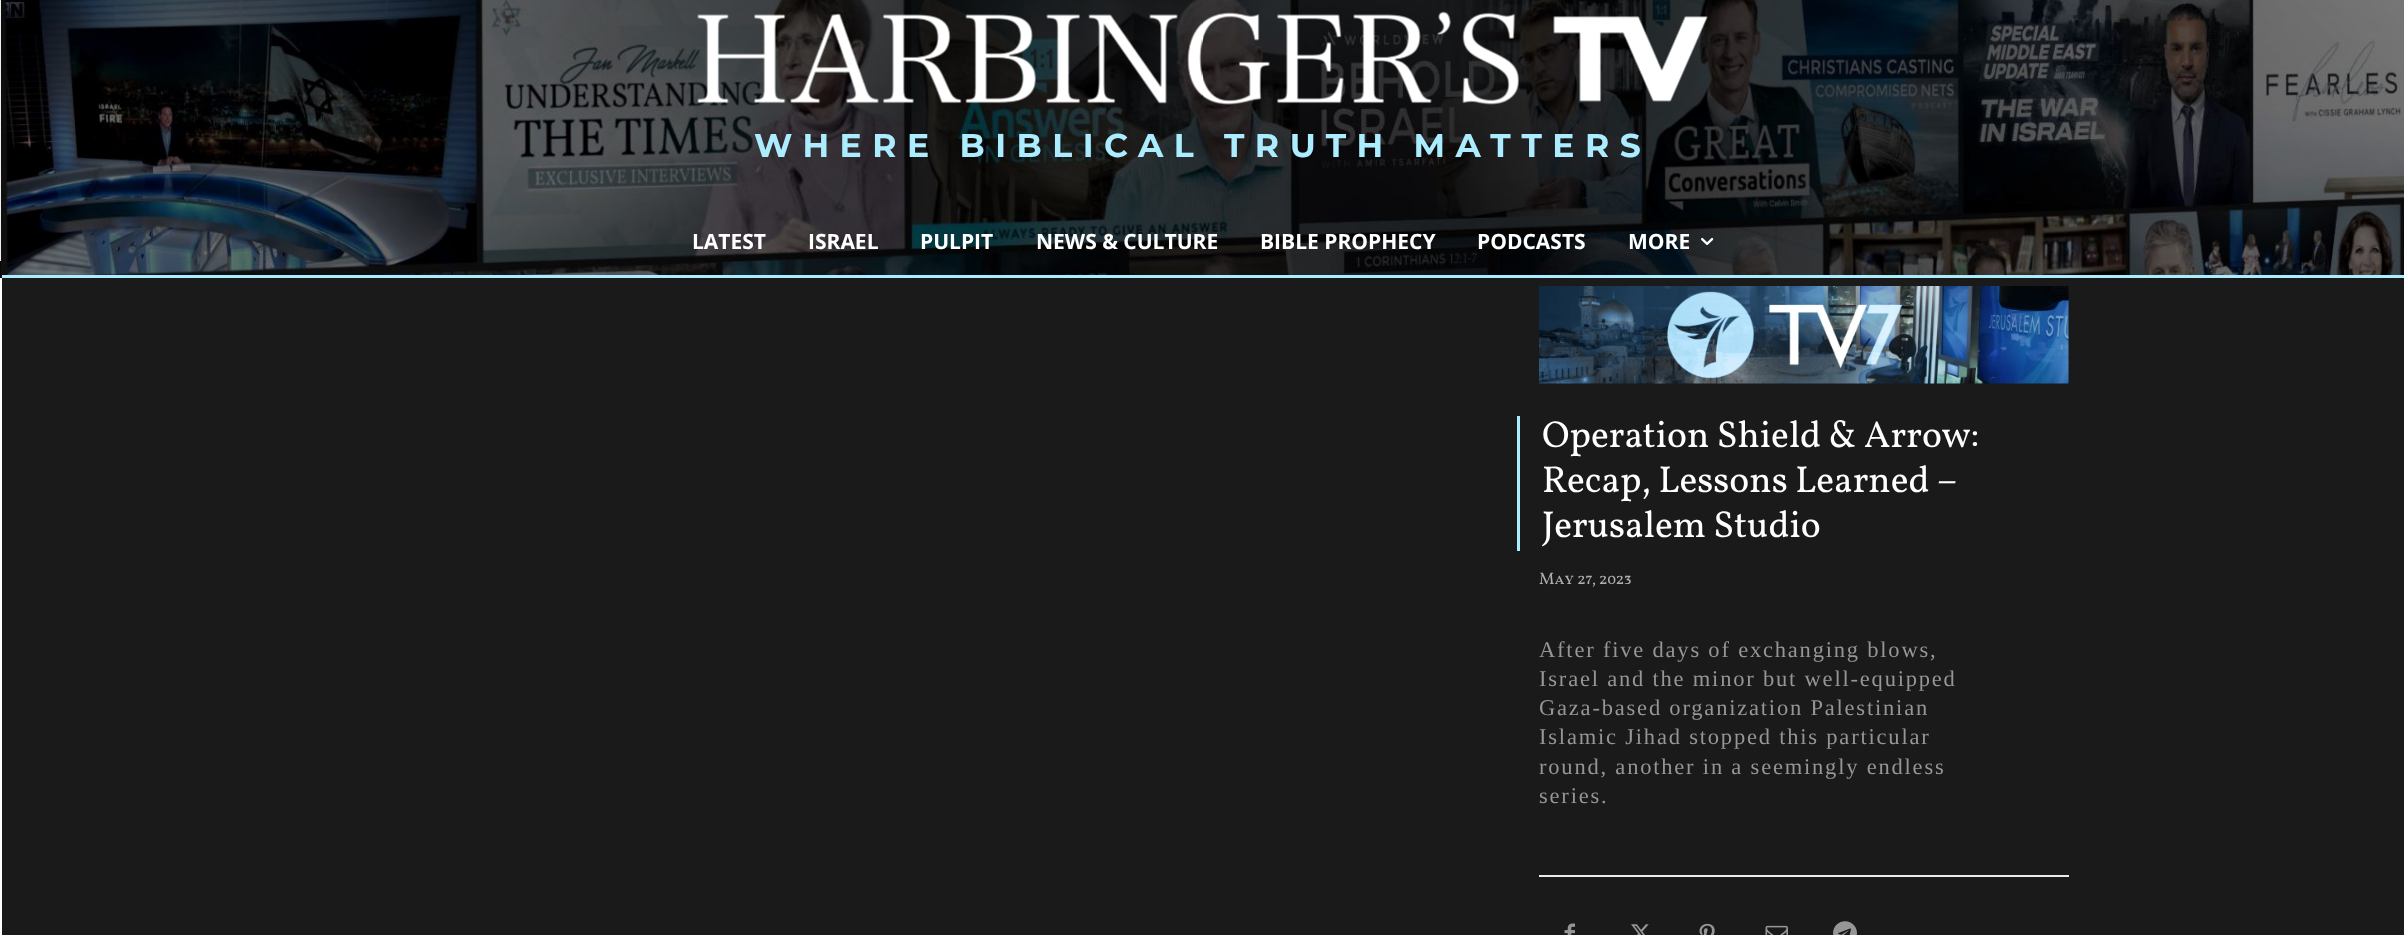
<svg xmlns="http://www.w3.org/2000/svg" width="2404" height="935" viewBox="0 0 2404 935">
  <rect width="100%" height="100%" fill="rgb(255,255,255)"/>
  <path d="M0 261V278H2404V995H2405V261Z" fill="rgb(10,10,10)"/>
  <image x="0" y="0" width="2404" height="277" href="pic1.png"/>
  <rect x="2" y="275" width="2402" height="3" fill="rgb(172,236,255)"/>
  <image x="697" y="11" width="1011" height="94" href="pic2.png"/>
  <text x="754" y="157" font-family="Montserrat" font-size="33" font-weight="bold" letter-spacing="10.5" fill="rgb(172,236,255)">WHERE BIBLICAL TRUTH MATTERS</text>
  <g font-family="Open Sans" font-size="21" font-weight="bold" fill="rgb(255,255,255)">
    <text x="692" y="249">LATEST</text>
    <text x="808" y="249">ISRAEL</text>
    <text x="920" y="249">PULPIT</text>
    <text x="1036" y="249">NEWS &amp; CULTURE</text>
    <text x="1260" y="249">BIBLE PROPHECY</text>
    <text x="1477" y="249">PODCASTS</text>
    <text x="1628" y="249">MORE</text>
  </g>
  <image x="1701" y="237" width="13" height="8" href="pic3.png"/>
  <rect x="2" y="278" width="2402" height="657" fill="rgb(26,26,26)"/>
  <image x="1539" y="286" width="530" height="98" href="pic4.png"/>
  <rect x="1517" y="416" width="3" height="135" fill="rgb(172,236,255)"/>
  <g font-family="Vollkorn" font-size="37.5" fill="rgb(255,255,255)">
    <text>
      <tspan x="1542" y="447">Operation Shield &amp; Arrow:</tspan>
      <tspan x="1542" y="492">Recap, Lessons Learned –</tspan>
      <tspan x="1542" y="537">Jerusalem Studio</tspan>
    </text>
  </g>
  <text x="1539" y="584" font-family="Vollkorn SC" font-size="16.5" fill="rgb(175,175,175)">May 27, 2023</text>
  <g font-family="Liberation Serif" font-size="22.5" letter-spacing="1.8" fill="rgb(150,150,150)">
    <text>
      <tspan x="1539" y="657">After five days of exchanging blows,</tspan>
      <tspan x="1539" y="686">Israel and the minor but well-equipped</tspan>
      <tspan x="1539" y="715">Gaza-based organization Palestinian</tspan>
      <tspan x="1539" y="744">Islamic Jihad stopped this particular</tspan>
      <tspan x="1539" y="774">round, another in a seemingly endless</tspan>
      <tspan x="1539" y="803">series.</tspan>
    </text>
  </g>
  <rect x="1539" y="875" width="530" height="2" fill="rgb(235,235,235)"/>
  <image x="1564" y="923" width="11" height="12" href="pic5.png"/>
  <image x="1631" y="924" width="18" height="11" href="pic6.png"/>
  <image x="1699" y="923" width="16" height="12" href="pic7.png"/>
  <image x="1765" y="925" width="23" height="10" href="pic8.png"/>
  <image x="1833" y="921" width="24" height="14" href="pic9.png"/>
</svg>
